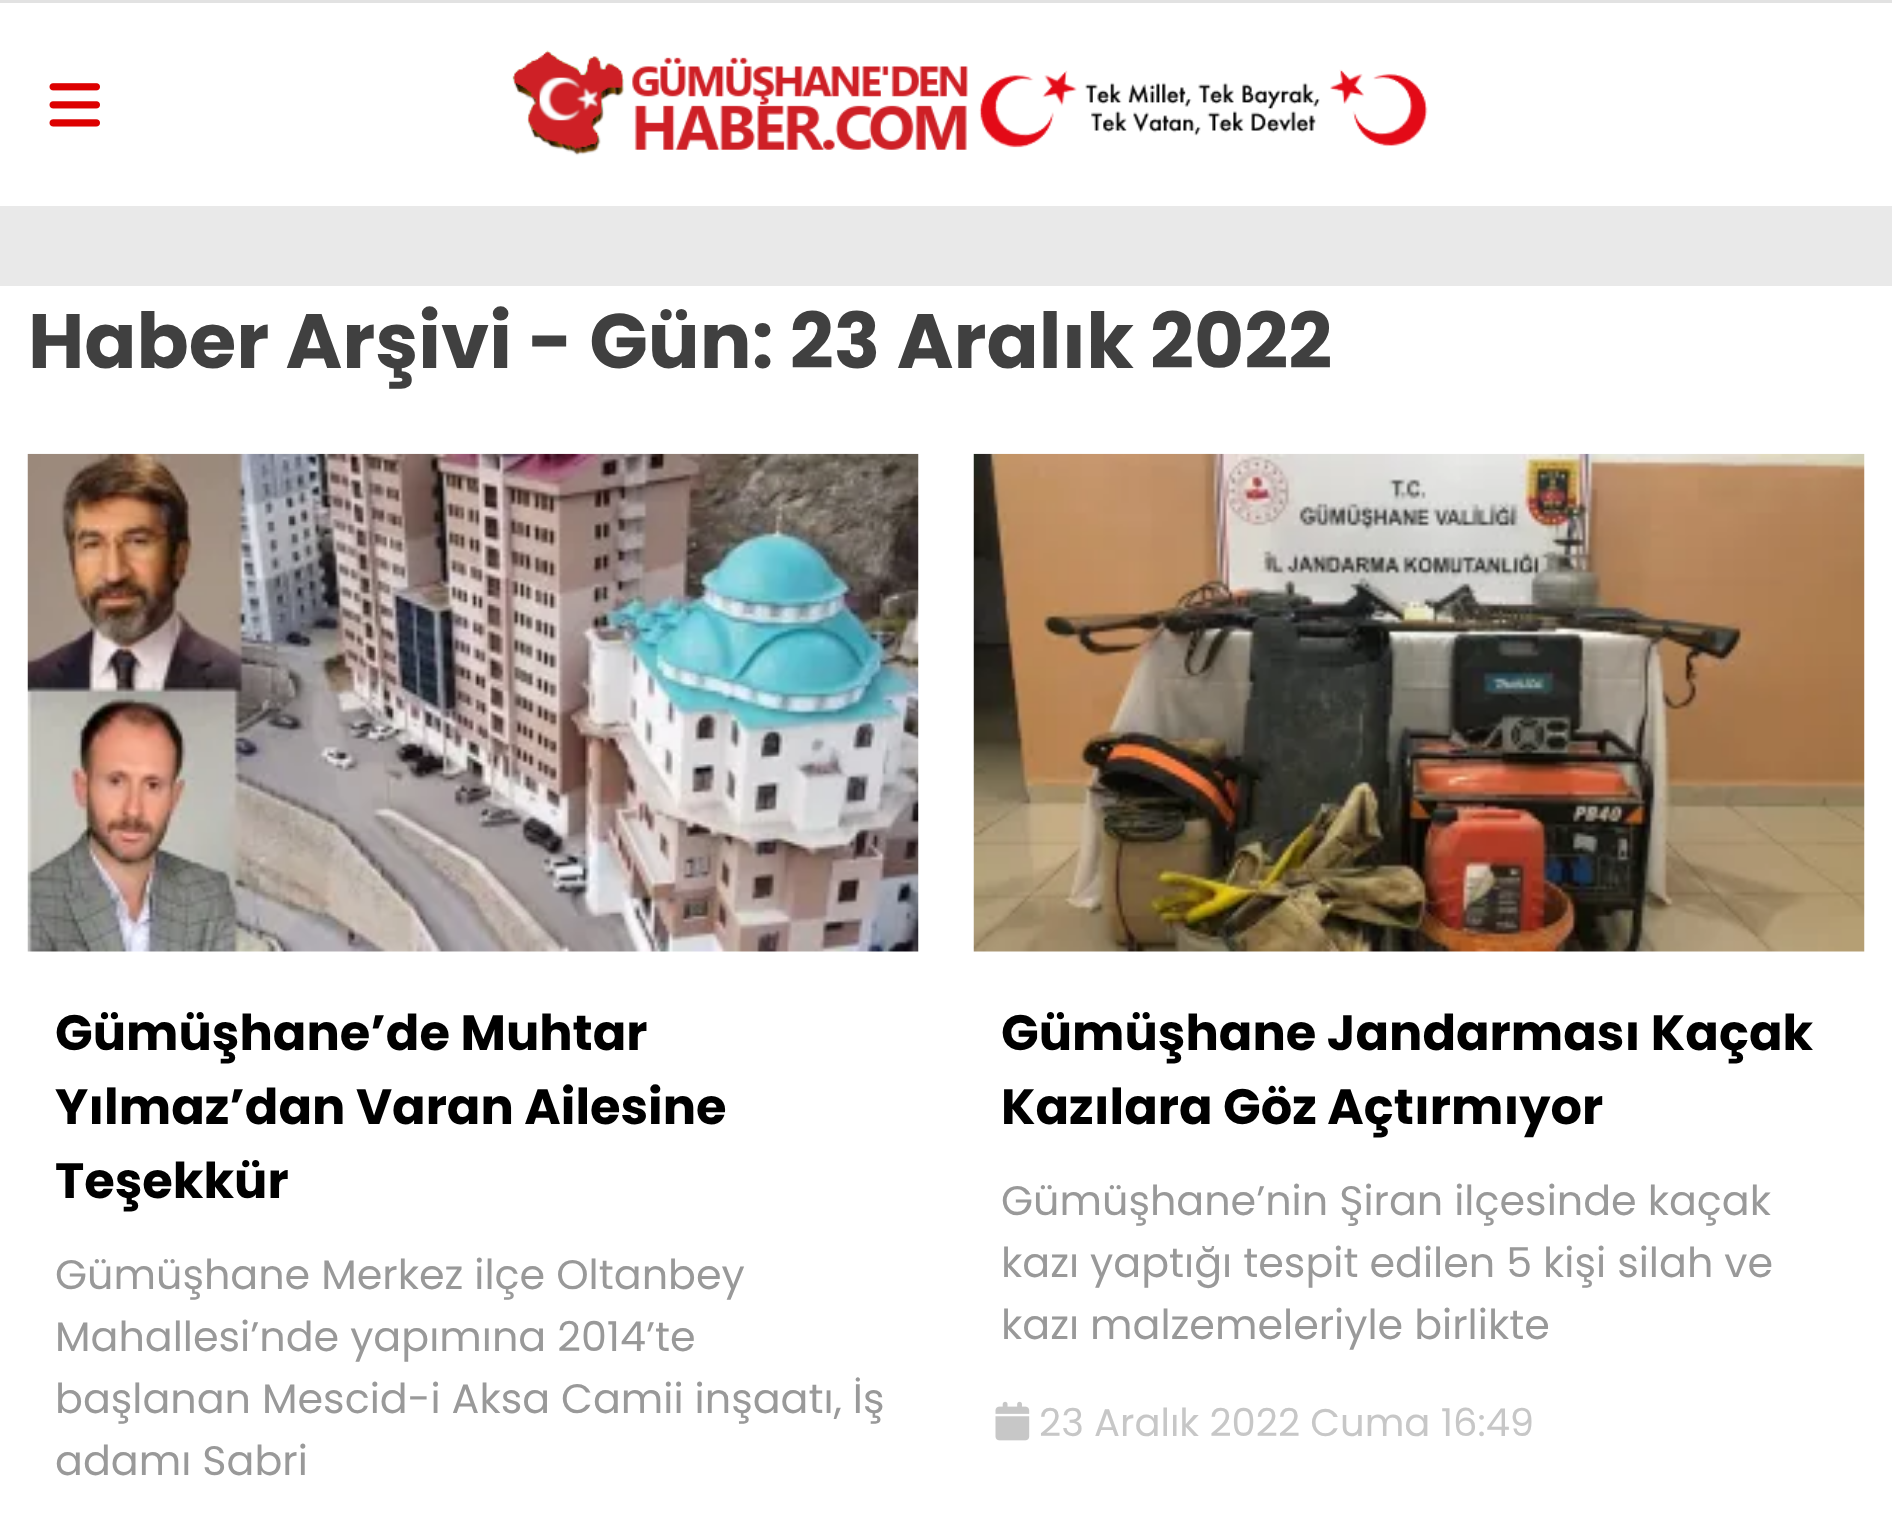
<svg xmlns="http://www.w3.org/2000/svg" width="1892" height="1534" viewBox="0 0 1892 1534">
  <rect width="100%" height="100%" fill="rgb(233,233,233)"/>
  <rect x="0" y="0" width="1892" height="3" fill="rgb(226,226,226)"/>
  <rect x="0" y="3" width="1892" height="203" fill="rgb(255,255,255)"/>
  <image x="49" y="83" width="51" height="44" href="pic1.png"/>
  <image x="512" y="50" width="456" height="106" href="pic2.png"/>
  <image x="979" y="69" width="449" height="79" href="pic3.png"/>
  <rect x="0" y="286" width="1892" height="1248" fill="rgb(255,255,255)"/>
  <text x="28" y="368" font-family="Poppins" font-size="77" font-weight="bold" fill="rgb(64,64,64)">Haber Arşivi - Gün: 23 Aralık 2022</text>
  <image x="27" y="453" width="892" height="499" href="pic4.png"/>
  <g font-family="Poppins" font-size="49.5" font-weight="bold" fill="rgb(0,0,0)">
    <text>
      <tspan x="55" y="1050">Gümüşhane’de Muhtar</tspan>
      <tspan x="55" y="1124">Yılmaz’dan Varan Ailesine</tspan>
      <tspan x="55" y="1198">Teşekkür</tspan>
    </text>
  </g>
  <g font-family="Poppins" font-size="41.25" fill="rgb(153,153,153)">
    <text>
      <tspan x="55" y="1289">Gümüşhane Merkez ilçe Oltanbey</tspan>
      <tspan x="55" y="1351">Mahallesi’nde yapımına 2014’te</tspan>
      <tspan x="55" y="1413">başlanan Mescid-i Aksa Camii inşaatı, İş</tspan>
      <tspan x="55" y="1475">adamı Sabri</tspan>
    </text>
  </g>
  <image x="973" y="453" width="892" height="499" href="pic5.png"/>
  <g font-family="Poppins" font-size="49.5" font-weight="bold" fill="rgb(0,0,0)">
    <text>
      <tspan x="1001" y="1050">Gümüşhane Jandarması Kaçak</tspan>
      <tspan x="1001" y="1124">Kazılara Göz Açtırmıyor</tspan>
    </text>
  </g>
  <g font-family="Poppins" font-size="41.25" fill="rgb(153,153,153)">
    <text>
      <tspan x="1001" y="1215">Gümüşhane’nin Şiran ilçesinde kaçak</tspan>
      <tspan x="1001" y="1277">kazı yaptığı tespit edilen 5 kişi silah ve</tspan>
      <tspan x="1001" y="1339">kazı malzemeleriyle birlikte</tspan>
    </text>
  </g>
  <image x="995" y="1401" width="35" height="40" href="pic6.png"/>
  <text x="1039" y="1436" font-family="Poppins" font-size="38.5" fill="rgb(199,199,199)">23 Aralık 2022 Cuma 16:49</text>
</svg>
